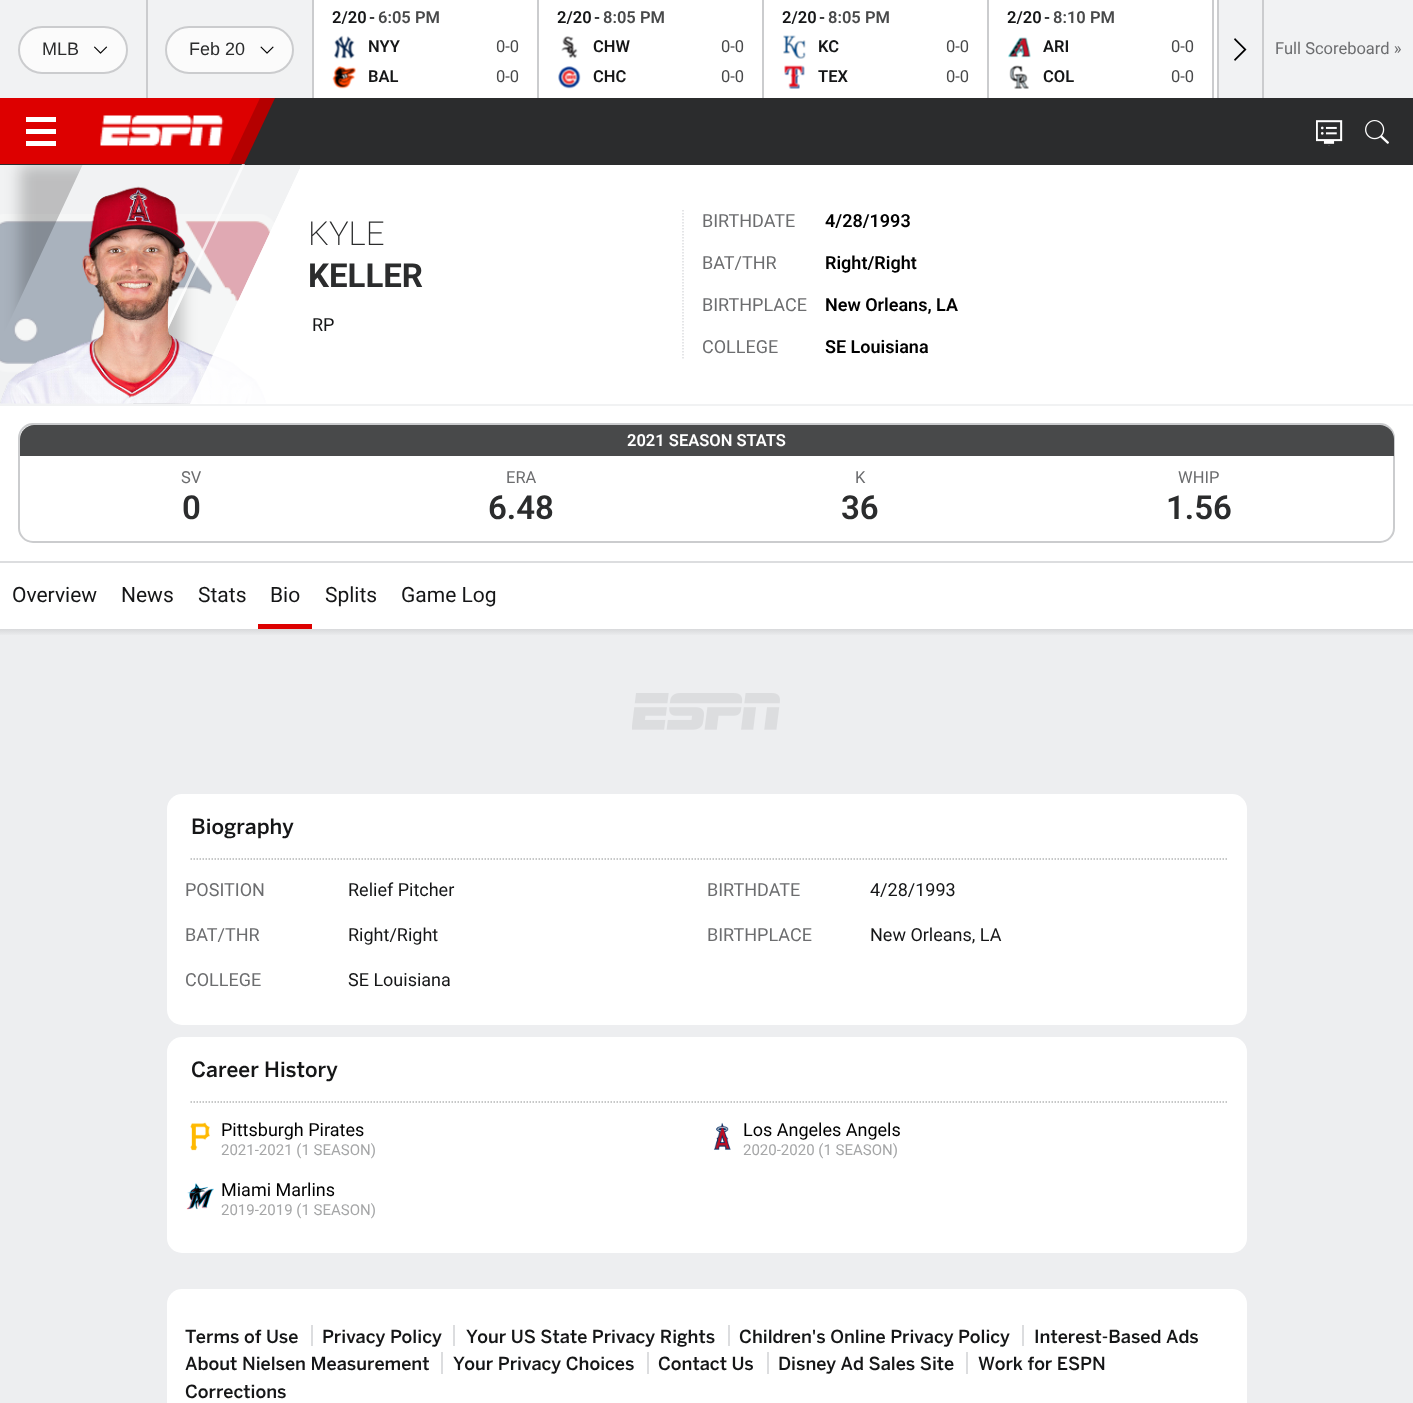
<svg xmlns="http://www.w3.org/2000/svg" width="1413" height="1403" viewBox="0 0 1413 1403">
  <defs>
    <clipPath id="clip1"><rect x="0" y="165" width="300" height="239"/></clipPath>
    <clipPath id="clip2"><path d="M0 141H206V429H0ZM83 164H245L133 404H-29Z" clip-rule="evenodd"/></clipPath>
    <clipPath id="clip3"><rect x="1316" y="119" width="27" height="27"/></clipPath>
    <clipPath id="clip4"><rect x="0" y="165" width="300" height="239"/></clipPath>
    <linearGradient id="g1" gradientUnits="userSpaceOnUse" x1="707" y1="628" x2="707" y2="636"><stop offset="0" stop-color="rgb(213,214,216)"/><stop offset="1" stop-color="rgb(237,238,240)"/></linearGradient>
  </defs>
  <rect width="100%" height="100%" fill="rgb(237,238,240)"/>
  <rect x="0" y="0" width="1413" height="98" fill="rgb(241,242,243)"/>
  <rect x="146" y="0" width="2" height="98" fill="rgb(203,204,206)"/>
  <rect x="19" y="27" width="108" height="46" rx="23" fill="rgb(251,251,251)" stroke="rgb(203,204,206)" stroke-width="2"/>
  <text x="42" y="55" font-family="Liberation Sans" font-size="18" fill="rgb(43,44,45)">MLB</text>
  <image x="94" y="46" width="14" height="8" href="pic1.png"/>
  <rect x="312" y="0" width="2" height="98" fill="rgb(203,204,206)"/>
  <rect x="166" y="27" width="127" height="46" rx="23" fill="rgb(251,251,251)" stroke="rgb(203,204,206)" stroke-width="2"/>
  <text x="189" y="55" font-family="Liberation Sans" font-size="18" fill="rgb(43,44,45)">Feb 20</text>
  <image x="260" y="46" width="14" height="8" href="pic2.png"/>
  <rect x="314" y="0" width="223" height="98" fill="rgb(255,255,255)"/>
  <rect x="537" y="0" width="2" height="98" fill="rgb(203,204,206)"/>
  <g font-family="Roboto" font-size="16.5" font-weight="600" fill="rgb(21,22,23)">
    <text x="332" y="23">2/20</text>
    <text x="369" y="23">-</text>
  </g>
  <text x="378" y="23" font-family="Roboto" font-size="16.5" font-weight="600" fill="rgb(72,73,74)">6:05 PM</text>
  <image x="334" y="35" width="21" height="24" href="pic3.png"/>
  <text x="368" y="52" font-family="Roboto" font-size="16.5" font-weight="600" fill="rgb(21,22,23)">NYY</text>
  <text x="496" y="52" font-family="Roboto" font-size="16.5" fill="rgb(72,73,74)">0-0</text>
  <image x="332" y="66" width="24" height="23" href="pic4.png"/>
  <text x="368" y="82" font-family="Roboto" font-size="16.5" font-weight="600" fill="rgb(21,22,23)">BAL</text>
  <text x="496" y="82" font-family="Roboto" font-size="16.5" fill="rgb(72,73,74)">0-0</text>
  <rect x="539" y="0" width="223" height="98" fill="rgb(255,255,255)"/>
  <rect x="762" y="0" width="2" height="98" fill="rgb(203,204,206)"/>
  <g font-family="Roboto" font-size="16.5" font-weight="600" fill="rgb(21,22,23)">
    <text x="557" y="23">2/20</text>
    <text x="594" y="23">-</text>
  </g>
  <text x="603" y="23" font-family="Roboto" font-size="16.5" font-weight="600" fill="rgb(72,73,74)">8:05 PM</text>
  <image x="561" y="36" width="17" height="23" href="pic5.png"/>
  <text x="593" y="52" font-family="Roboto" font-size="16.5" font-weight="600" fill="rgb(21,22,23)">CHW</text>
  <text x="721" y="52" font-family="Roboto" font-size="16.5" fill="rgb(72,73,74)">0-0</text>
  <image x="558" y="66" width="23" height="23" href="pic6.png"/>
  <text x="593" y="82" font-family="Roboto" font-size="16.5" font-weight="600" fill="rgb(21,22,23)">CHC</text>
  <text x="721" y="82" font-family="Roboto" font-size="16.5" fill="rgb(72,73,74)">0-0</text>
  <rect x="764" y="0" width="223" height="98" fill="rgb(255,255,255)"/>
  <rect x="987" y="0" width="2" height="98" fill="rgb(203,204,206)"/>
  <g font-family="Roboto" font-size="16.5" font-weight="600" fill="rgb(21,22,23)">
    <text x="782" y="23">2/20</text>
    <text x="819" y="23">-</text>
  </g>
  <text x="828" y="23" font-family="Roboto" font-size="16.5" font-weight="600" fill="rgb(72,73,74)">8:05 PM</text>
  <image x="783" y="35" width="23" height="24" href="pic7.png"/>
  <text x="818" y="52" font-family="Roboto" font-size="16.5" font-weight="600" fill="rgb(21,22,23)">KC</text>
  <text x="946" y="52" font-family="Roboto" font-size="16.5" fill="rgb(72,73,74)">0-0</text>
  <image x="784" y="65" width="21" height="24" href="pic8.png"/>
  <text x="818" y="82" font-family="Roboto" font-size="16.5" font-weight="600" fill="rgb(21,22,23)">TEX</text>
  <text x="946" y="82" font-family="Roboto" font-size="16.5" fill="rgb(72,73,74)">0-0</text>
  <rect x="989" y="0" width="223" height="98" fill="rgb(255,255,255)"/>
  <rect x="1212" y="0" width="2" height="98" fill="rgb(203,204,206)"/>
  <g font-family="Roboto" font-size="16.5" font-weight="600" fill="rgb(21,22,23)">
    <text x="1007" y="23">2/20</text>
    <text x="1044" y="23">-</text>
  </g>
  <text x="1053" y="23" font-family="Roboto" font-size="16.5" font-weight="600" fill="rgb(72,73,74)">8:10 PM</text>
  <image x="1008" y="37" width="23" height="21" href="pic9.png"/>
  <text x="1043" y="52" font-family="Roboto" font-size="16.5" font-weight="600" fill="rgb(21,22,23)">ARI</text>
  <text x="1171" y="52" font-family="Roboto" font-size="16.5" fill="rgb(72,73,74)">0-0</text>
  <image x="1009" y="65" width="20" height="24" href="pic10.png"/>
  <text x="1043" y="82" font-family="Roboto" font-size="16.5" font-weight="600" fill="rgb(21,22,23)">COL</text>
  <text x="1171" y="82" font-family="Roboto" font-size="16.5" fill="rgb(72,73,74)">0-0</text>
  <rect x="1214" y="0" width="3" height="98" fill="rgb(255,255,255)"/>
  <rect x="1217" y="0" width="2" height="98" fill="rgb(203,204,206)"/>
  <path d="M1235 38L1234 39.5L1244 49.5L1234 59.5L1235 61L1246.5 49.5Z" fill="rgb(0,0,0)"/>
  <rect x="1262" y="0" width="2" height="98" fill="rgb(203,204,206)"/>
  <text x="1275" y="54" font-family="Roboto" font-size="16.5" fill="rgb(108,109,111)">Full Scoreboard »</text>
  <rect x="0" y="165" width="1413" height="396" fill="rgb(255,255,255)"/>
  <rect x="0" y="404" width="1413" height="2" fill="rgb(241,242,243)"/>
  <rect x="0" y="165" width="300" height="239" fill="rgb(241,242,243)"/>
  <image x="0" y="214" width="275" height="159" href="pic15.png"/>
  <rect x="19" y="424" width="1375" height="118" rx="14" fill="none" stroke="rgb(203,204,206)" stroke-width="2"/>
  <path d="M34 425H1380C1387.5 425 1394 431.5 1394 439V456H20V439C20 431.5 26.5 425 34 425Z" fill="rgb(72,73,74)"/>
  <g clip-path="url(#clip1)">
    <g clip-path="url(#clip2)">
      <rect x="20" y="165" width="162" height="240" fill="rgba(0,0,0,0.21)" filter="blur(7.5px)"/>
    </g>
  </g>
  <rect x="0" y="98" width="1413" height="67" fill="rgb(43,44,45)"/>
  <path d="M80 98H275L244 164H49Z" fill="rgb(180,0,0)"/>
  <path d="M-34 98H260L229 164H-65Z" fill="rgb(221,0,0)"/>
  <image x="100" y="115" width="124" height="31" href="pic11.png"/>
  <rect x="26" y="129" width="30" height="5" fill="rgb(255,255,255)"/>
  <rect x="26" y="117" width="30" height="5" fill="rgb(255,255,255)"/>
  <rect x="26" y="141" width="30" height="5" fill="rgb(255,255,255)"/>
  <image x="1316" y="120" width="27" height="24" href="pic12.png"/>
  <g clip-path="url(#clip3)">
    <path d="M1341 157.5H1317L1329 145.5Z" fill="rgb(255,255,255)"/>
  </g>
  <image x="1365" y="120" width="24" height="24" href="pic13.png"/>
  <rect x="0" y="561" width="1413" height="2" fill="rgb(220,221,223)"/>
  <path d="M242 164H245L133 404H130Z" fill="rgba(255,255,255,0.7)"/>
  <g clip-path="url(#clip4)">
    <path d="M302 164H416L304 404H190Z" fill="rgb(255,255,255)"/>
  </g>
  <image x="0" y="186" width="267" height="218" href="pic14.png"/>
  <g clip-path="url(#clip4)">
    <path d="M302 164H416L304 404H190Z" fill="rgba(255,255,255,0.9)"/>
  </g>
  <text x="308" y="245" font-family="Roboto" font-size="33" font-weight="200" fill="rgb(43,44,45)">KYLE</text>
  <text x="308" y="287" font-family="Roboto" font-size="33" font-weight="bold" fill="rgb(43,44,45)">KELLER</text>
  <text x="312" y="331" font-family="Roboto" font-size="18" fill="rgb(21,22,23)">RP</text>
  <path d="M683 210V360" fill="none" stroke="rgb(220,221,223)" stroke-width="1.5" stroke-dasharray="1.5 1.5"/>
  <text x="702" y="227" font-family="Roboto" font-size="18" fill="rgb(108,109,111)">BIRTHDATE</text>
  <text x="825" y="227" font-family="Roboto" font-size="18" font-weight="600" fill="rgb(0,0,0)">4/28/1993</text>
  <text x="702" y="269" font-family="Roboto" font-size="18" fill="rgb(108,109,111)">BAT/THR</text>
  <text x="825" y="269" font-family="Roboto" font-size="18" font-weight="600" fill="rgb(0,0,0)">Right/Right</text>
  <text x="702" y="311" font-family="Roboto" font-size="18" fill="rgb(108,109,111)">BIRTHPLACE</text>
  <text x="825" y="311" font-family="Roboto" font-size="18" font-weight="600" fill="rgb(0,0,0)">New Orleans, LA</text>
  <text x="702" y="353" font-family="Roboto" font-size="18" fill="rgb(108,109,111)">COLLEGE</text>
  <text x="825" y="353" font-family="Roboto" font-size="18" font-weight="600" fill="rgb(0,0,0)">SE Louisiana</text>
  <text x="627" y="446" font-family="Roboto" font-size="16.5" font-weight="600" fill="rgb(255,255,255)">2021 SEASON STATS</text>
  <text x="181" y="483" font-family="Roboto" font-size="16.5" fill="rgb(108,109,111)">SV</text>
  <text x="182" y="519" font-family="Roboto" font-size="33" font-weight="600" fill="rgb(43,44,45)">0</text>
  <text x="506" y="483" font-family="Roboto" font-size="16.5" fill="rgb(108,109,111)">ERA</text>
  <text x="488" y="519" font-family="Roboto" font-size="33" font-weight="600" fill="rgb(43,44,45)">6.48</text>
  <text x="855" y="483" font-family="Roboto" font-size="16.5" fill="rgb(108,109,111)">K</text>
  <text x="841" y="519" font-family="Roboto" font-size="33" font-weight="600" fill="rgb(43,44,45)">36</text>
  <text x="1178" y="483" font-family="Roboto" font-size="16.5" fill="rgb(108,109,111)">WHIP</text>
  <text x="1166" y="519" font-family="Roboto" font-size="33" font-weight="600" fill="rgb(43,44,45)">1.56</text>
  <rect x="0" y="563" width="1413" height="66" fill="rgb(255,255,255)"/>
  <g font-family="Roboto" font-size="21" fill="rgb(21,22,23)">
    <text x="12" y="602">Overview</text>
    <text x="121" y="602">News</text>
    <text x="198" y="602">Stats</text>
  </g>
  <rect x="258" y="624" width="54" height="5" fill="rgb(221,0,0)"/>
  <g font-family="Roboto" font-size="21" fill="rgb(21,22,23)">
    <text x="270" y="602">Bio</text>
    <text x="325" y="602">Splits</text>
    <text x="401" y="602">Game Log</text>
  </g>
  <rect x="0" y="629" width="1413" height="6" fill="url(#g1)"/>
  <image x="632" y="693" width="148" height="37" href="pic16.png"/>
  <rect x="167" y="794" width="1080" height="231" rx="15" fill="rgb(255,255,255)"/>
  <path d="M190.5 859H1228.5" fill="none" stroke="rgb(181,183,183)" stroke-width="1.5" stroke-dasharray="1.5 1.5"/>
  <text x="191" y="834" font-family="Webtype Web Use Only" font-size="21" font-weight="500" fill="rgb(21,22,23)">Biography</text>
  <text x="185" y="896" font-family="Roboto" font-size="18" fill="rgb(108,109,111)">POSITION</text>
  <text x="348" y="896" font-family="Roboto" font-size="18" fill="rgb(21,22,23)">Relief Pitcher</text>
  <text x="707" y="896" font-family="Roboto" font-size="18" fill="rgb(108,109,111)">BIRTHDATE</text>
  <text x="870" y="896" font-family="Roboto" font-size="18" fill="rgb(21,22,23)">4/28/1993</text>
  <text x="185" y="941" font-family="Roboto" font-size="18" fill="rgb(108,109,111)">BAT/THR</text>
  <text x="348" y="941" font-family="Roboto" font-size="18" fill="rgb(21,22,23)">Right/Right</text>
  <text x="707" y="941" font-family="Roboto" font-size="18" fill="rgb(108,109,111)">BIRTHPLACE</text>
  <text x="870" y="941" font-family="Roboto" font-size="18" fill="rgb(21,22,23)">New Orleans, LA</text>
  <text x="185" y="986" font-family="Roboto" font-size="18" fill="rgb(108,109,111)">COLLEGE</text>
  <text x="348" y="986" font-family="Roboto" font-size="18" fill="rgb(21,22,23)">SE Louisiana</text>
  <rect x="167" y="1037" width="1080" height="216" rx="15" fill="rgb(255,255,255)"/>
  <path d="M190.5 1102H1228.5" fill="none" stroke="rgb(181,183,183)" stroke-width="1.5" stroke-dasharray="1.5 1.5"/>
  <text x="191" y="1077" font-family="Webtype Web Use Only" font-size="21" font-weight="500" fill="rgb(21,22,23)">Career History</text>
  <image x="190" y="1122" width="20" height="29" href="pic17.png"/>
  <text x="221" y="1136" font-family="Roboto" font-size="18" fill="rgb(0,0,0)">Pittsburgh Pirates</text>
  <text x="221" y="1155" font-family="Roboto" font-size="15" fill="rgb(165,166,167)">2021-2021 (1 SEASON)</text>
  <image x="713" y="1122" width="18" height="28" href="pic18.png"/>
  <text x="743" y="1136" font-family="Roboto" font-size="18" fill="rgb(0,0,0)">Los Angeles Angels</text>
  <text x="743" y="1155" font-family="Roboto" font-size="15" fill="rgb(165,166,167)">2020-2020 (1 SEASON)</text>
  <image x="186" y="1183" width="28" height="27" href="pic19.png"/>
  <text x="221" y="1196" font-family="Roboto" font-size="18" fill="rgb(0,0,0)">Miami Marlins</text>
  <text x="221" y="1215" font-family="Roboto" font-size="15" fill="rgb(165,166,167)">2019-2019 (1 SEASON)</text>
  <rect x="167" y="1289" width="1080" height="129" rx="15" fill="rgb(255,255,255)"/>
  <text x="185" y="1343" font-family="Webtype Web Use Only" font-size="18" font-weight="500" fill="rgb(21,22,23)">Terms of Use</text>
  <rect x="311" y="1325" width="2" height="21" fill="rgb(220,221,223)"/>
  <text x="322" y="1343" font-family="Webtype Web Use Only" font-size="18" font-weight="500" fill="rgb(21,22,23)">Privacy Policy</text>
  <rect x="453" y="1325" width="2" height="21" fill="rgb(220,221,223)"/>
  <text x="466" y="1343" font-family="Webtype Web Use Only" font-size="18" font-weight="500" fill="rgb(21,22,23)">Your US State Privacy Rights</text>
  <rect x="728" y="1325" width="2" height="21" fill="rgb(220,221,223)"/>
  <text x="739" y="1343" font-family="Webtype Web Use Only" font-size="18" font-weight="500" fill="rgb(21,22,23)">Children's Online Privacy Policy</text>
  <rect x="1022" y="1325" width="2" height="21" fill="rgb(220,221,223)"/>
  <g font-family="Webtype Web Use Only" font-size="18" font-weight="500" fill="rgb(21,22,23)">
    <text x="1034" y="1343">Interest-Based Ads</text>
    <text x="185" y="1370">About Nielsen Measurement</text>
  </g>
  <rect x="441" y="1352" width="2" height="22" fill="rgb(220,221,223)"/>
  <text x="453" y="1370" font-family="Webtype Web Use Only" font-size="18" font-weight="500" fill="rgb(21,22,23)">Your Privacy Choices</text>
  <rect x="647" y="1352" width="2" height="22" fill="rgb(220,221,223)"/>
  <text x="658" y="1370" font-family="Webtype Web Use Only" font-size="18" font-weight="500" fill="rgb(21,22,23)">Contact Us</text>
  <rect x="767" y="1352" width="2" height="22" fill="rgb(220,221,223)"/>
  <text x="778" y="1370" font-family="Webtype Web Use Only" font-size="18" font-weight="500" fill="rgb(21,22,23)">Disney Ad Sales Site</text>
  <rect x="966" y="1352" width="2" height="22" fill="rgb(220,221,223)"/>
  <g font-family="Webtype Web Use Only" font-size="18" font-weight="500" fill="rgb(21,22,23)">
    <text x="978" y="1370">Work for ESPN</text>
    <text x="185" y="1398">Corrections</text>
  </g>
</svg>
